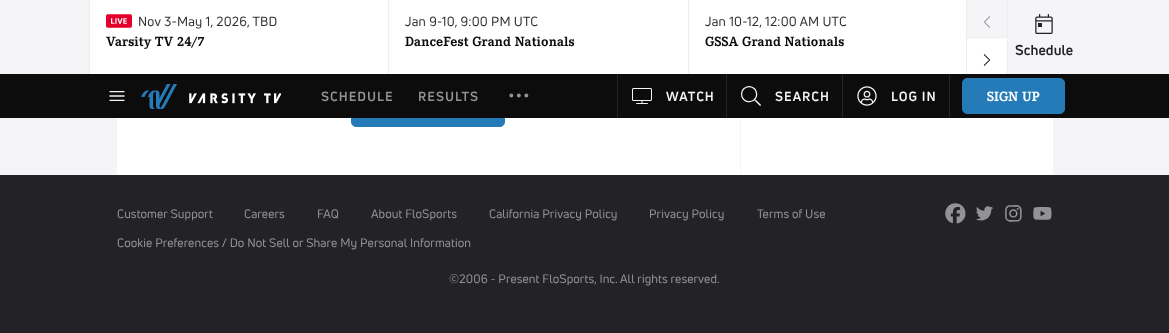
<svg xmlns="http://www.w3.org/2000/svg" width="1169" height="333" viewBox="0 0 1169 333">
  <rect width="100%" height="100%" fill="rgb(245,245,247)"/>
  <rect x="90" y="0" width="917" height="74" fill="rgb(255,255,255)"/>
  <rect x="388" y="0" width="1" height="74" fill="rgb(238,238,240)"/>
  <rect x="89" y="0" width="1" height="74" fill="rgb(238,238,240)"/>
  <image x="106" y="14" width="26" height="14" href="pic1.png"/>
  <text x="138" y="26" font-family="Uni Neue" font-size="13" letter-spacing="0.2" fill="rgb(50,50,54)">Nov 3-May 1, 2026, TBD</text>
  <text x="106" y="46" font-family="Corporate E" font-size="14" font-weight="bold" letter-spacing="0.1" fill="rgb(12,12,12)">Varsity TV 24/7</text>
  <rect x="688" y="0" width="1" height="74" fill="rgb(238,238,240)"/>
  <text x="405" y="26" font-family="Uni Neue" font-size="13" letter-spacing="0.2" fill="rgb(50,50,54)">Jan 9-10, 9:00 PM UTC</text>
  <text x="405" y="46" font-family="Corporate E" font-size="14" font-weight="bold" letter-spacing="0.1" fill="rgb(12,12,12)">DanceFest Grand Nationals</text>
  <text x="705" y="26" font-family="Uni Neue" font-size="13" letter-spacing="0.2" fill="rgb(50,50,54)">Jan 10-12, 12:00 AM UTC</text>
  <text x="705" y="46" font-family="Corporate E" font-size="14" font-weight="bold" letter-spacing="0.1" fill="rgb(12,12,12)">GSSA Grand Nationals</text>
  <rect x="966" y="0" width="1" height="74" fill="rgb(238,238,240)"/>
  <rect x="967" y="0" width="40" height="37" fill="rgb(245,245,247)"/>
  <image x="984" y="16" width="7" height="12" href="pic2.png"/>
  <rect x="967" y="37" width="40" height="1" fill="rgb(238,238,240)"/>
  <image x="983" y="54" width="8" height="12" href="pic3.png"/>
  <rect x="1007" y="0" width="1" height="74" fill="rgb(238,238,240)"/>
  <image x="1035" y="14" width="18" height="20" href="pic4.png"/>
  <text x="1015" y="55" font-family="Uni Neue" font-size="14" font-weight="bold" letter-spacing="0.1" fill="rgb(35,35,39)">Schedule</text>
  <rect x="117" y="118" width="936" height="57" fill="rgb(255,255,255)"/>
  <rect x="351.5" y="85.5" width="153" height="41" rx="4.5" fill="rgb(36,123,184)" stroke="rgb(36,123,184)"/>
  <rect x="740" y="118" width="1" height="57" fill="rgb(245,245,247)"/>
  <rect x="0" y="74" width="1169" height="44" fill="rgb(12,12,12)"/>
  <image x="109" y="91" width="16" height="10" href="pic5.png"/>
  <image x="141" y="84" width="140" height="25" href="pic6.png"/>
  <g font-family="Uni Neue" font-size="13" font-weight="bold" letter-spacing="1" fill="rgb(147,147,150)">
    <text x="321" y="101">SCHEDULE</text>
    <text x="418" y="101">RESULTS</text>
  </g>
  <image x="509" y="93" width="20" height="5" href="pic7.png"/>
  <rect x="617" y="74" width="1" height="44" fill="rgb(35,35,39)"/>
  <image x="632" y="88" width="20" height="16" href="pic8.png"/>
  <text x="666" y="101" font-family="Uni Neue" font-size="13" font-weight="bold" letter-spacing="1" fill="rgb(245,245,247)">WATCH</text>
  <rect x="726" y="74" width="1" height="44" fill="rgb(35,35,39)"/>
  <image x="741" y="86" width="20" height="20" href="pic9.png"/>
  <text x="775" y="101" font-family="Uni Neue" font-size="13" font-weight="bold" letter-spacing="1" fill="rgb(245,245,247)">SEARCH</text>
  <rect x="949" y="74" width="1" height="44" fill="rgb(35,35,39)"/>
  <rect x="842" y="74" width="1" height="44" fill="rgb(35,35,39)"/>
  <image x="857" y="86" width="20" height="20" href="pic10.png"/>
  <text x="891" y="101" font-family="Uni Neue" font-size="13" font-weight="bold" letter-spacing="1" fill="rgb(245,245,247)">LOG IN</text>
  <rect x="962.5" y="78.5" width="102" height="35" rx="4.5" fill="rgb(36,123,184)" stroke="rgb(36,123,184)"/>
  <text x="987" y="101" font-family="Corporate E" font-size="14" font-weight="bold" letter-spacing="0.1" fill="rgb(255,255,255)">SIGN UP</text>
  <rect x="0" y="175" width="1169" height="158" fill="rgb(35,35,39)"/>
  <g font-family="Uni Neue" font-size="12" letter-spacing="0.1" fill="rgb(147,147,150)">
    <text x="117" y="218">Customer Support</text>
    <text x="244" y="218">Careers</text>
    <text x="317" y="218">FAQ</text>
    <text x="371" y="218">About FloSports</text>
    <text x="489" y="218">California Privacy Policy</text>
    <text x="649" y="218">Privacy Policy</text>
    <text x="757" y="218">Terms of Use</text>
    <text x="117" y="247">Cookie Preferences / Do Not Sell or Share My Personal Information</text>
  </g>
  <image x="945" y="203" width="21" height="21" href="pic11.png"/>
  <image x="976" y="206" width="17" height="15" href="pic12.png"/>
  <image x="1005" y="205" width="17" height="17" href="pic13.png"/>
  <image x="1033" y="207" width="19" height="13" href="pic14.png"/>
  <text x="449" y="283" font-family="Uni Neue" font-size="12" letter-spacing="0.1" fill="rgb(147,147,150)">©2006 - Present FloSports, Inc. All rights reserved.</text>
</svg>
